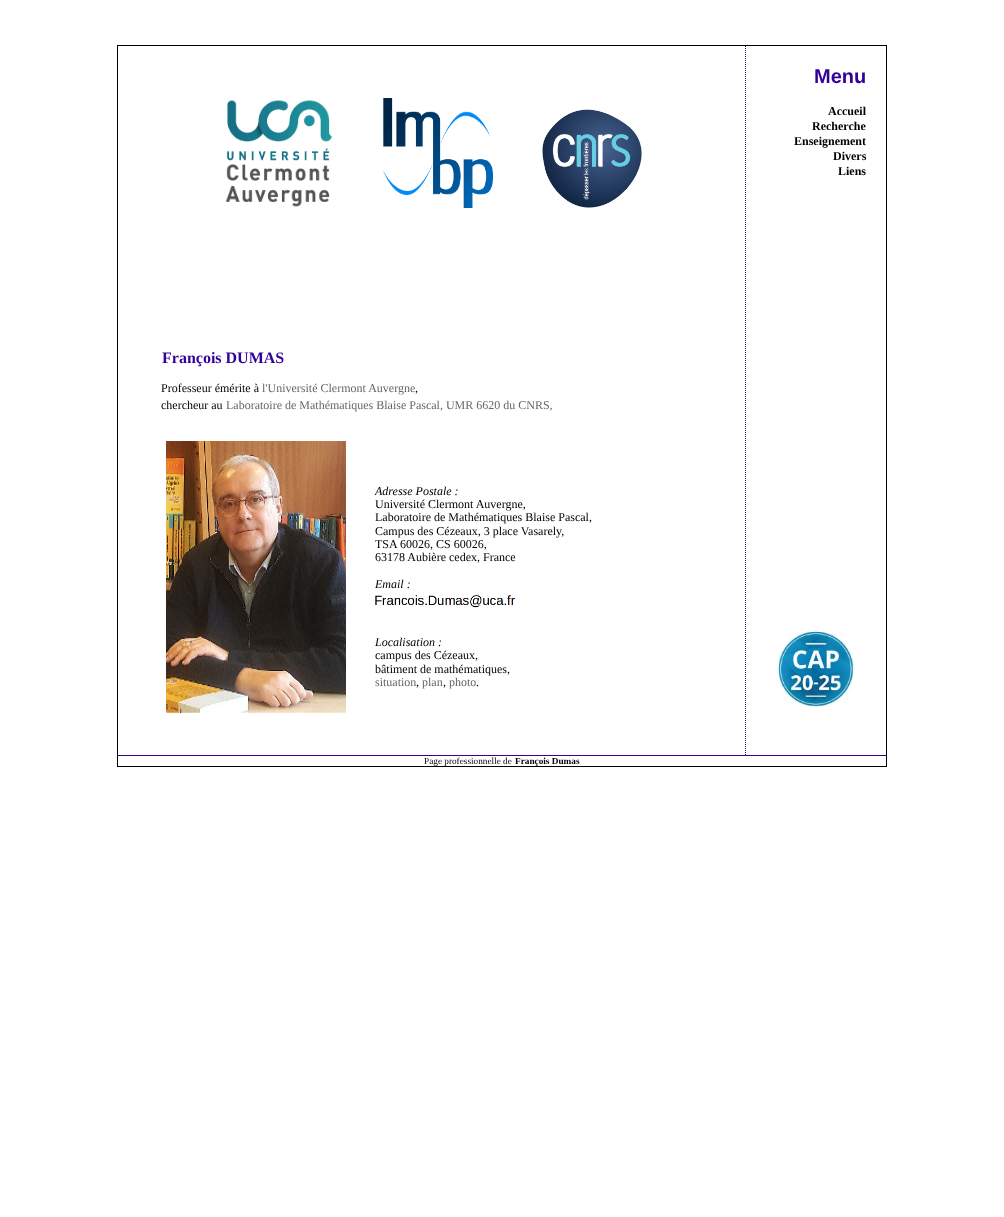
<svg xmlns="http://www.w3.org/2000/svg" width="1004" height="1217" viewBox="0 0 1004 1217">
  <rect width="100%" height="100%" fill="rgb(255,255,255)"/>
  <rect x="117.5" y="45.5" width="769" height="721" fill="none" stroke="rgb(0,0,0)"/>
  <text x="814" y="83" font-family="Liberation Sans" font-size="20" font-weight="bold" fill="rgb(51,0,153)">Menu</text>
  <g font-family="Liberation Serif" font-size="12" font-weight="bold" fill="rgb(0,0,0)">
    <text x="828" y="115">Accueil</text>
    <text x="812" y="130">Recherche</text>
    <text x="794" y="145">Enseignement</text>
    <text x="833" y="160">Divers</text>
    <text x="838" y="175">Liens</text>
  </g>
  <image x="776" y="629" width="79" height="79" href="pic1.png"/>
  <path d="M745.5 46V755" fill="none" stroke="rgb(51,0,153)" stroke-dasharray="1 1"/>
  <image x="225" y="100" width="107" height="107" href="pic2.png"/>
  <image x="383" y="98" width="110" height="110" href="pic3.png"/>
  <image x="542" y="109" width="100" height="99" href="pic4.png"/>
  <text x="162" y="363" font-family="Liberation Serif" font-size="16" font-weight="bold" fill="rgb(51,0,153)">François DUMAS</text>
  <text x="161" y="392" font-family="Liberation Serif" font-size="12" fill="rgb(0,0,0)">Professeur émérite à</text>
  <text x="262" y="392" font-family="Liberation Serif" font-size="12" fill="rgb(102,102,102)">l'Université Clermont Auvergne</text>
  <g font-family="Liberation Serif" font-size="12" fill="rgb(0,0,0)">
    <text x="415" y="392">,</text>
    <text x="161" y="409">chercheur au</text>
  </g>
  <text x="226" y="409" font-family="Liberation Serif" font-size="12" fill="rgb(102,102,102)">Laboratoire de Mathématiques Blaise Pascal, UMR 6620 du CNRS,</text>
  <image x="166" y="441" width="180" height="274" href="pic5.png"/>
  <text x="375" y="495" font-family="Liberation Serif" font-size="12" font-style="italic" fill="rgb(0,0,0)">Adresse Postale :</text>
  <g font-family="Liberation Serif" font-size="12" fill="rgb(0,0,0)">
    <text>
      <tspan x="375" y="508">Université Clermont Auvergne,</tspan>
      <tspan x="375" y="521">Laboratoire de Mathématiques Blaise Pascal,</tspan>
      <tspan x="375" y="535">Campus des Cézeaux, 3 place Vasarely,</tspan>
      <tspan x="375" y="548">TSA 60026, CS 60026,</tspan>
      <tspan x="375" y="561">63178 Aubière cedex, France</tspan>
    </text>
  </g>
  <text x="375" y="588" font-family="Liberation Serif" font-size="12" font-style="italic" fill="rgb(0,0,0)">Email :</text>
  <image x="375" y="595" width="140" height="13" href="pic6.png"/>
  <text x="375" y="646" font-family="Liberation Serif" font-size="12" font-style="italic" fill="rgb(0,0,0)">Localisation :</text>
  <g font-family="Liberation Serif" font-size="12" fill="rgb(0,0,0)">
    <text>
      <tspan x="375" y="659">campus des Cézeaux,</tspan>
      <tspan x="375" y="673">bâtiment de mathématiques,</tspan>
    </text>
  </g>
  <text x="375" y="686" font-family="Liberation Serif" font-size="12" fill="rgb(102,102,102)">situation</text>
  <text x="416" y="686" font-family="Liberation Serif" font-size="12" fill="rgb(0,0,0)">,</text>
  <text x="422" y="686" font-family="Liberation Serif" font-size="12" fill="rgb(102,102,102)">plan</text>
  <text x="443" y="686" font-family="Liberation Serif" font-size="12" fill="rgb(0,0,0)">,</text>
  <text x="449" y="686" font-family="Liberation Serif" font-size="12" fill="rgb(102,102,102)">photo</text>
  <text x="476" y="686" font-family="Liberation Serif" font-size="12" fill="rgb(0,0,0)">.</text>
  <rect x="118" y="755" width="768" height="1" fill="rgb(51,0,153)"/>
  <text x="424" y="764" font-family="Liberation Serif" font-size="9.25" fill="rgb(0,0,0)">Page professionnelle de</text>
  <text x="515" y="764" font-family="Liberation Serif" font-size="9.25" font-weight="bold" fill="rgb(0,0,0)">François Dumas</text>
</svg>
